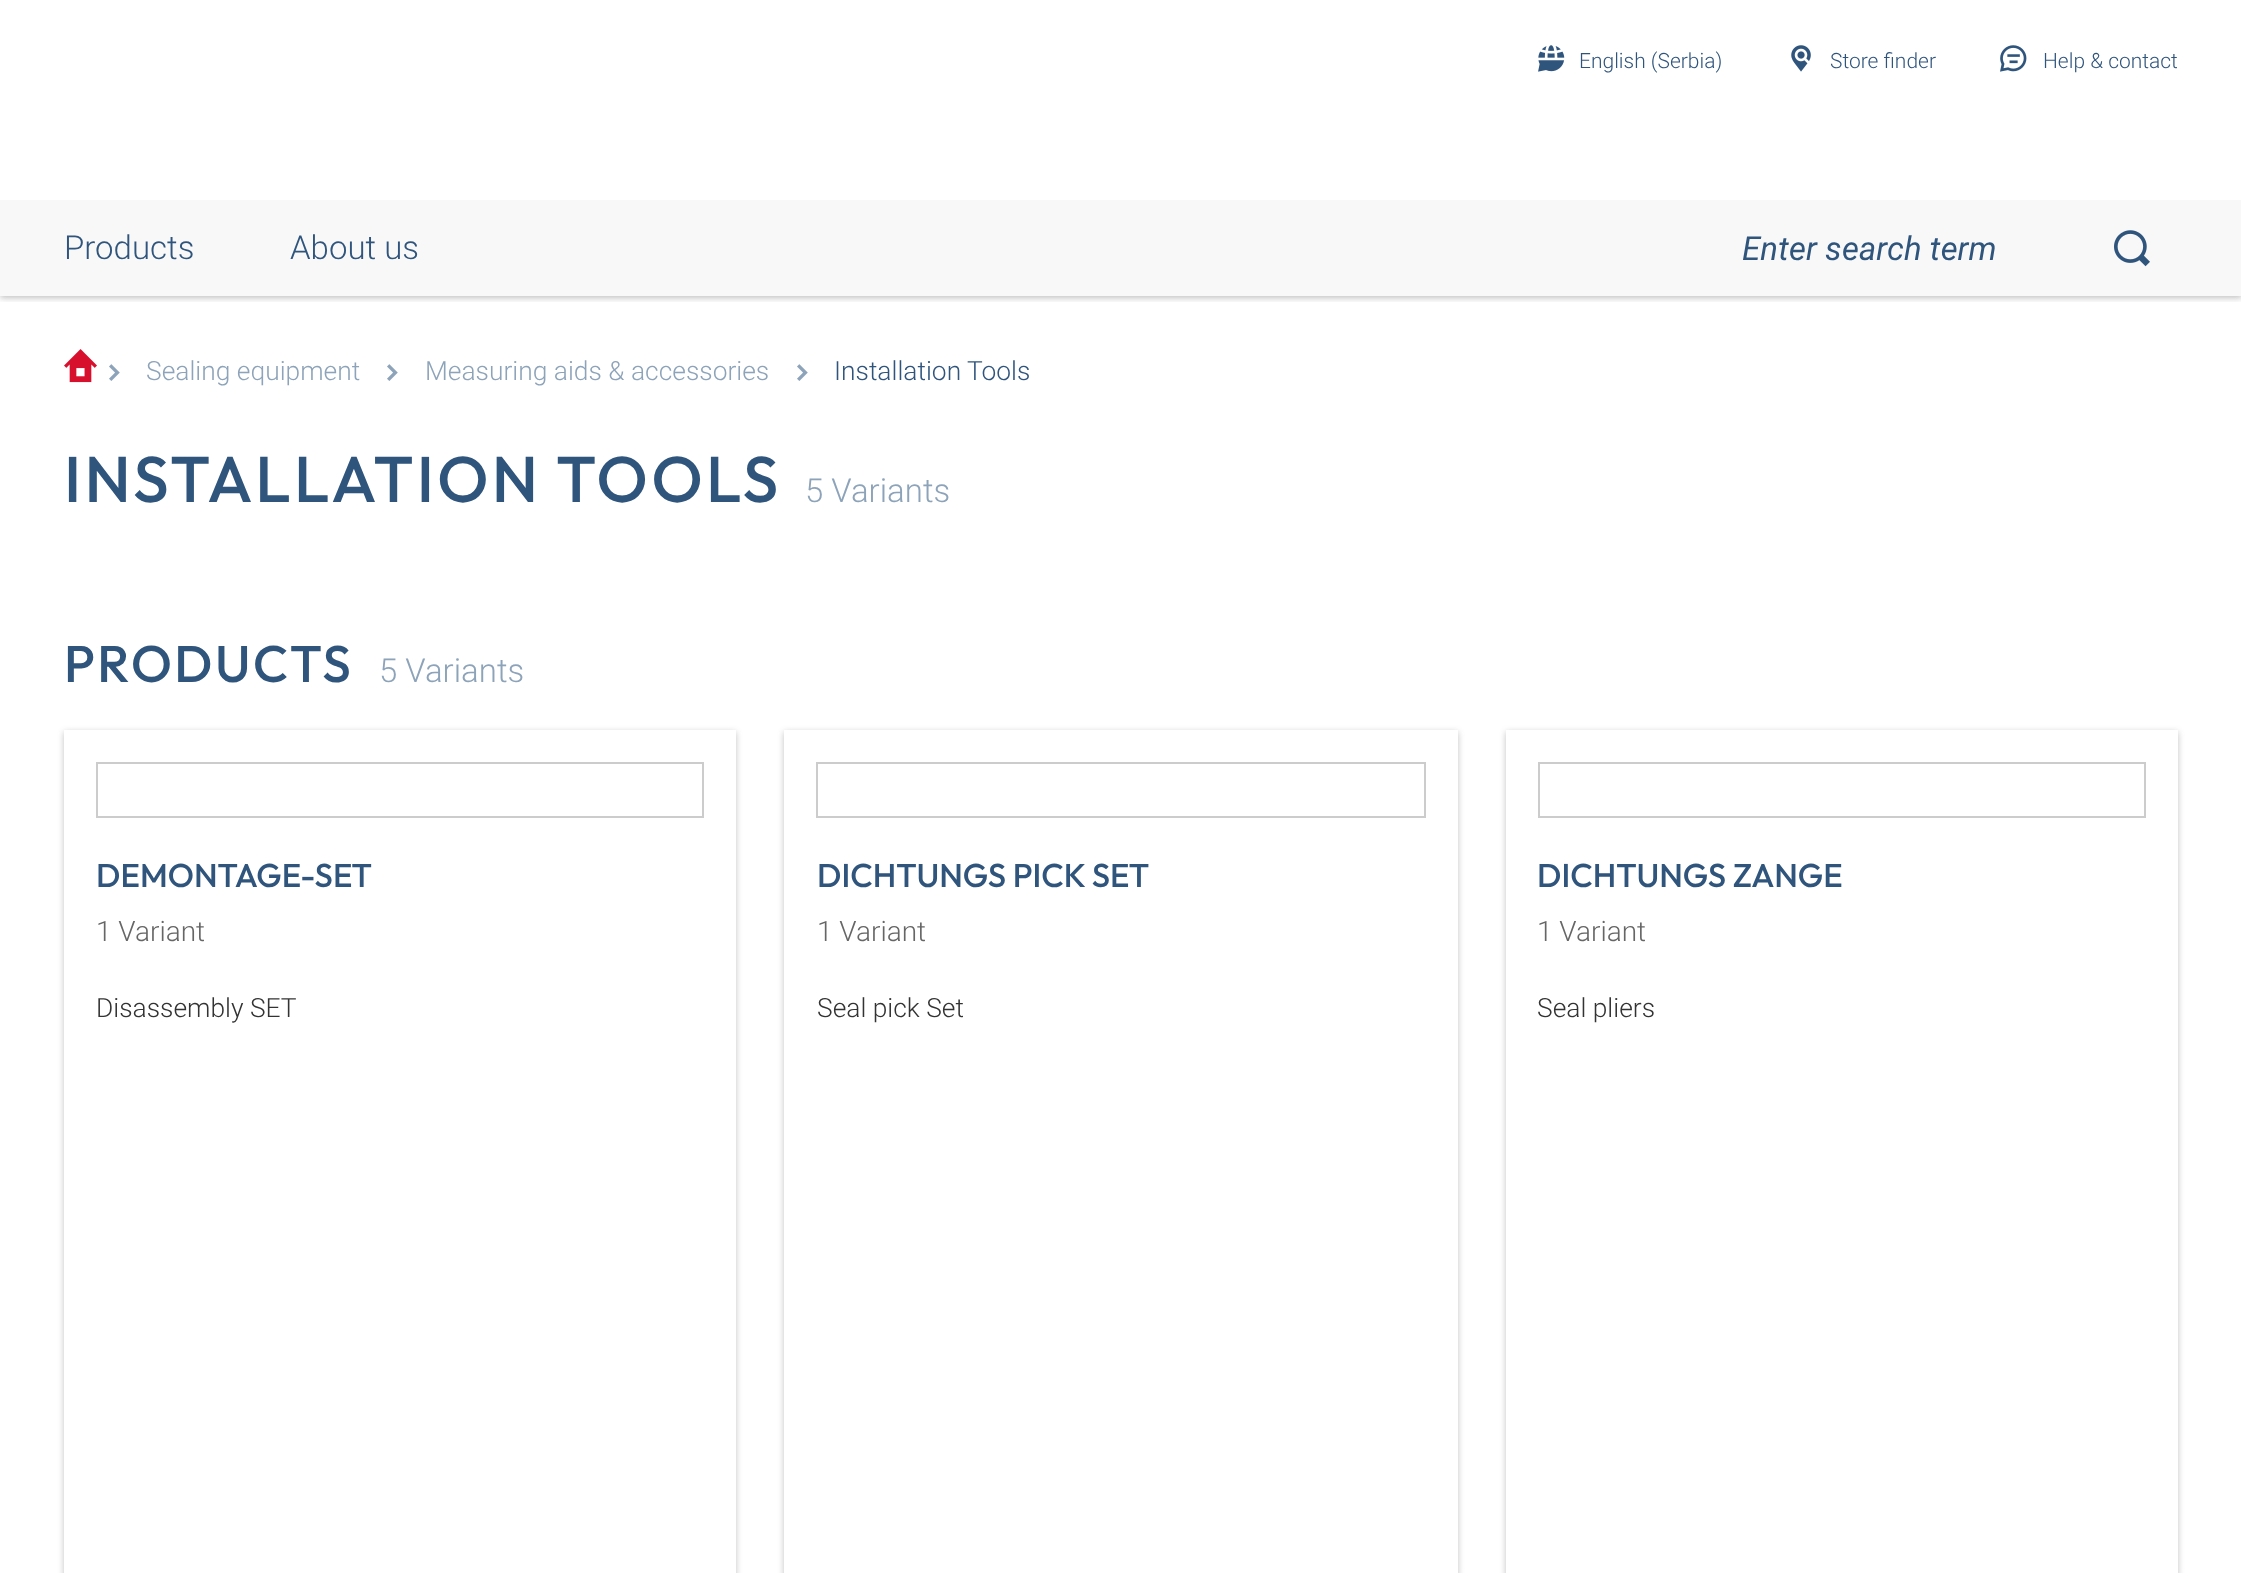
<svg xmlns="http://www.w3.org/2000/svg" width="2241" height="1573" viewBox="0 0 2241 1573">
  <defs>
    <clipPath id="clip1"><rect x="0" y="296" width="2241" height="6"/></clipPath>
    <clipPath id="clip2"><path d="M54 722H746V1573H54ZM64 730H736V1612H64Z" clip-rule="evenodd"/></clipPath>
    <clipPath id="clip3"><path d="M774 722H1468V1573H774ZM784 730H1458V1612H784Z" clip-rule="evenodd"/></clipPath>
    <clipPath id="clip4"><path d="M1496 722H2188V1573H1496ZM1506 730H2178V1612H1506Z" clip-rule="evenodd"/></clipPath>
  </defs>
  <rect width="100%" height="100%" fill="rgb(255,255,255)"/>
  <g clip-path="url(#clip1)">
    <rect x="0" y="2" width="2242" height="296" fill="rgba(51,51,51,0.3)" filter="blur(3px)"/>
  </g>
  <image x="1538" y="45" width="27" height="27" href="pic1.png"/>
  <text x="1579" y="68" font-family="Roboto" font-size="21" font-weight="300" fill="rgb(48,85,125)">English (Serbia)</text>
  <image x="1791" y="45" width="20" height="27" href="pic2.png"/>
  <text x="1830" y="68" font-family="Roboto" font-size="21" font-weight="300" fill="rgb(48,85,125)">Store finder</text>
  <image x="2000" y="45" width="27" height="27" href="pic3.png"/>
  <text x="2043" y="68" font-family="Roboto" font-size="21" font-weight="300" fill="rgb(48,85,125)">Help &amp; contact</text>
  <rect x="0" y="200" width="2241" height="96" fill="rgb(248,248,248)"/>
  <g font-family="Roboto" font-size="33" font-weight="300" fill="rgb(48,85,125)">
    <text x="64" y="259">Products</text>
    <text x="290" y="259">About us</text>
  </g>
  <text x="1742" y="260" font-family="Roboto" font-size="33" font-style="italic" fill="rgb(48,85,125)">Enter search term</text>
  <image x="2114" y="230" width="36" height="37" href="pic4.png"/>
  <image x="64" y="349" width="33" height="34" href="pic5.png"/>
  <image x="109" y="364" width="11" height="17" href="pic6.png"/>
  <text x="146" y="380" font-family="Roboto" font-size="26.4" font-weight="300" fill="rgb(141,163,185)">Sealing equipment</text>
  <image x="387" y="364" width="11" height="17" href="pic6.png"/>
  <text x="425" y="380" font-family="Roboto" font-size="26.4" font-weight="300" fill="rgb(141,163,185)">Measuring aids &amp; accessories</text>
  <image x="797" y="364" width="11" height="17" href="pic6.png"/>
  <text x="834" y="380" font-family="Roboto" font-size="26.4" font-weight="300" fill="rgb(48,85,125)">Installation Tools</text>
  <text x="64" y="502" font-family="Outfit" font-size="64.5" font-weight="500" letter-spacing="3.25" fill="rgb(48,85,125)">INSTALLATION TOOLS</text>
  <text x="805" y="502" font-family="Roboto" font-size="33" font-weight="300" fill="rgb(141,163,185)">5 Variants</text>
  <text x="64" y="682" font-family="Outfit" font-size="51.5" font-weight="500" letter-spacing="2.5" fill="rgb(48,85,125)">PRODUCTS</text>
  <text x="379" y="682" font-family="Roboto" font-size="33" font-weight="300" fill="rgb(141,163,185)">5 Variants</text>
  <g clip-path="url(#clip2)">
    <rect x="64" y="732" width="672" height="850" fill="rgba(51,51,51,0.3)" filter="blur(3px)"/>
  </g>
  <rect x="97" y="763" width="606" height="54" fill="none" stroke="rgb(204,204,204)" stroke-width="2"/>
  <text x="96" y="887" font-family="Outfit" font-size="33" font-weight="500" fill="rgb(48,85,125)">DEMONTAGE-SET</text>
  <text x="96" y="941" font-family="Roboto" font-size="28" font-weight="300" fill="rgb(102,102,102)">1 Variant</text>
  <text x="96" y="1017" font-family="Roboto" font-size="26.4" font-weight="300" fill="rgb(51,51,51)">Disassembly SET</text>
  <g clip-path="url(#clip3)">
    <rect x="784" y="732" width="674" height="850" fill="rgba(51,51,51,0.3)" filter="blur(3px)"/>
  </g>
  <rect x="817" y="763" width="608" height="54" fill="none" stroke="rgb(204,204,204)" stroke-width="2"/>
  <text x="817" y="887" font-family="Outfit" font-size="33" font-weight="500" fill="rgb(48,85,125)">DICHTUNGS PICK SET</text>
  <text x="817" y="941" font-family="Roboto" font-size="28" font-weight="300" fill="rgb(102,102,102)">1 Variant</text>
  <text x="817" y="1017" font-family="Roboto" font-size="26.4" font-weight="300" fill="rgb(51,51,51)">Seal pick Set</text>
  <g clip-path="url(#clip4)">
    <rect x="1506" y="732" width="672" height="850" fill="rgba(51,51,51,0.3)" filter="blur(3px)"/>
  </g>
  <rect x="1539" y="763" width="606" height="54" fill="none" stroke="rgb(204,204,204)" stroke-width="2"/>
  <text x="1537" y="887" font-family="Outfit" font-size="33" font-weight="500" fill="rgb(48,85,125)">DICHTUNGS ZANGE</text>
  <text x="1537" y="941" font-family="Roboto" font-size="28" font-weight="300" fill="rgb(102,102,102)">1 Variant</text>
  <text x="1537" y="1017" font-family="Roboto" font-size="26.4" font-weight="300" fill="rgb(51,51,51)">Seal pliers</text>
</svg>
